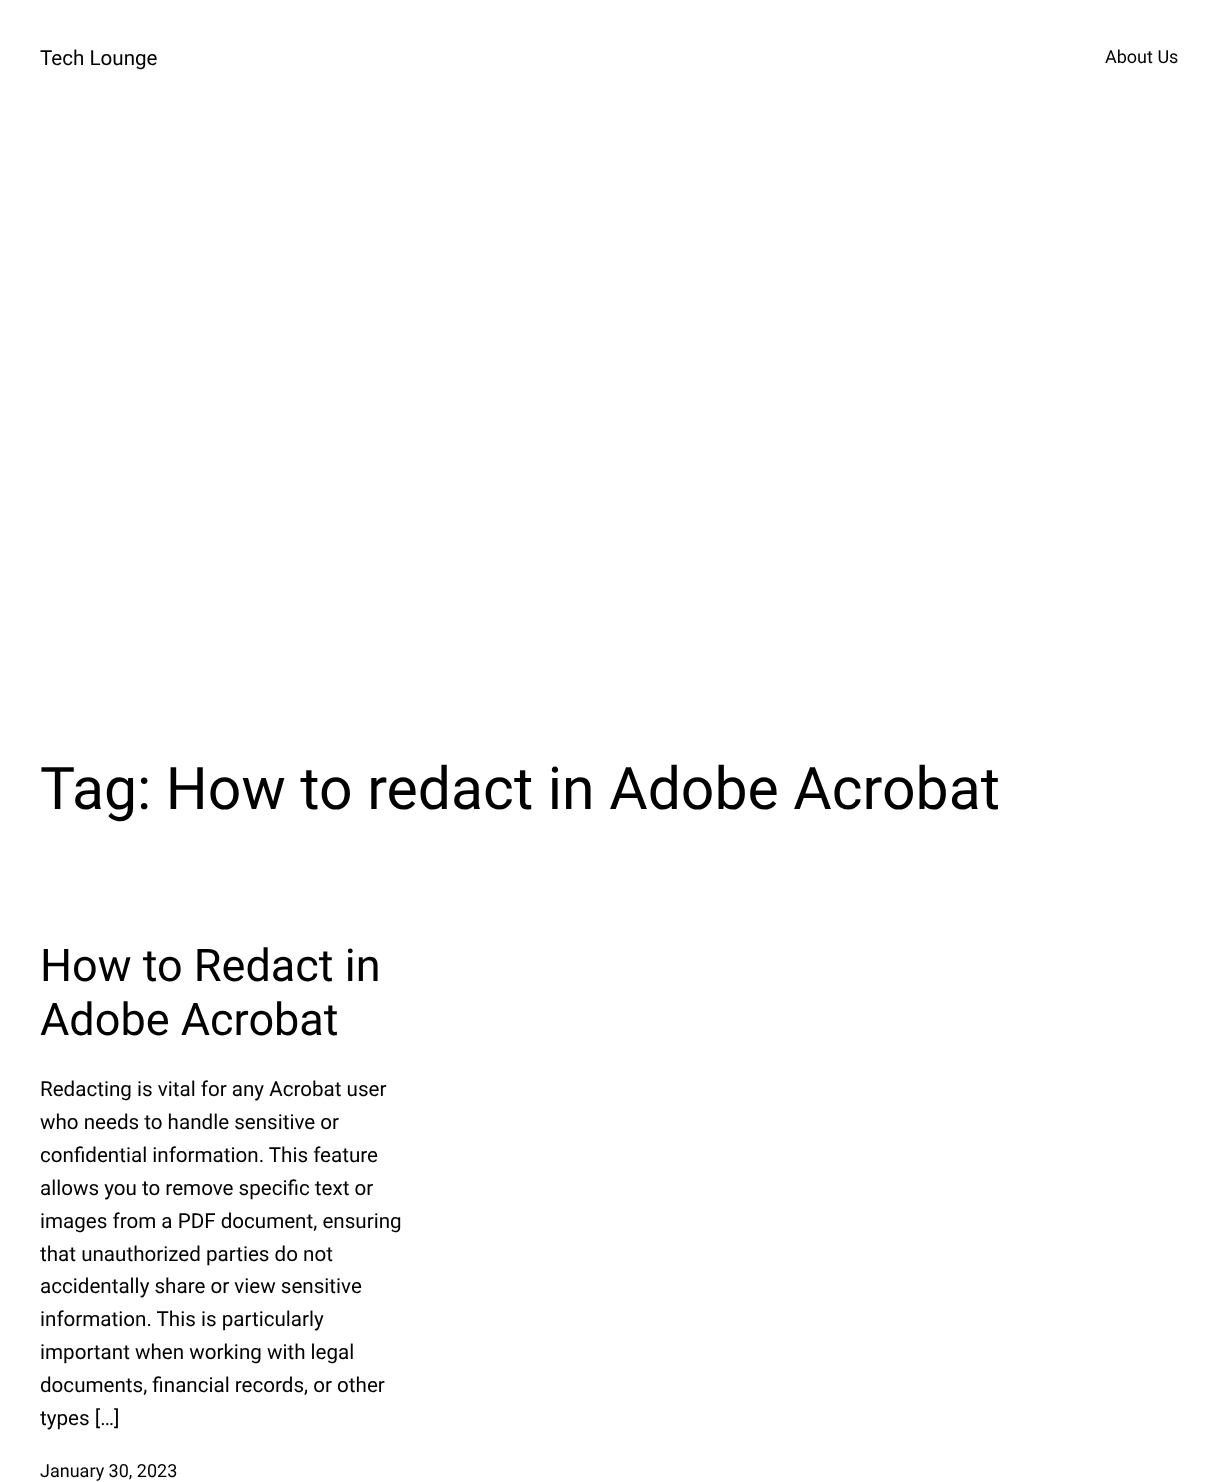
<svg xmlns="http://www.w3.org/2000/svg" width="1218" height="1482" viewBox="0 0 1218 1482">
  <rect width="100%" height="100%" fill="rgb(255,255,255)"/>
  <text x="40" y="65" font-family="Roboto" font-size="20.6" fill="rgb(0,0,0)">Tech Lounge</text>
  <text x="1105" y="63" font-family="Roboto" font-size="18" fill="rgb(0,0,0)">About Us</text>
  <text x="40" y="809" font-family="Roboto" font-size="58.9" fill="rgb(0,0,0)">Tag: How to redact in Adobe Acrobat</text>
  <g font-family="Roboto" font-size="45" fill="rgb(0,0,0)">
    <text>
      <tspan x="40" y="981">How to Redact in</tspan>
      <tspan x="40" y="1035">Adobe Acrobat</tspan>
    </text>
  </g>
  <g font-family="Roboto" font-size="20.6" fill="rgb(0,0,0)">
    <text>
      <tspan x="40" y="1096">Redacting is vital for any Acrobat user</tspan>
      <tspan x="40" y="1129">who needs to handle sensitive or</tspan>
      <tspan x="40" y="1162">confidential information. This feature</tspan>
      <tspan x="40" y="1195">allows you to remove specific text or</tspan>
      <tspan x="40" y="1228">images from a PDF document, ensuring</tspan>
      <tspan x="40" y="1261">that unauthorized parties do not</tspan>
      <tspan x="40" y="1293">accidentally share or view sensitive</tspan>
      <tspan x="40" y="1326">information. This is particularly</tspan>
      <tspan x="40" y="1359">important when working with legal</tspan>
      <tspan x="40" y="1392">documents, financial records, or other</tspan>
      <tspan x="40" y="1425">types […]</tspan>
    </text>
  </g>
  <text x="40" y="1477" font-family="Roboto" font-size="18" fill="rgb(0,0,0)">January 30, 2023</text>
</svg>
